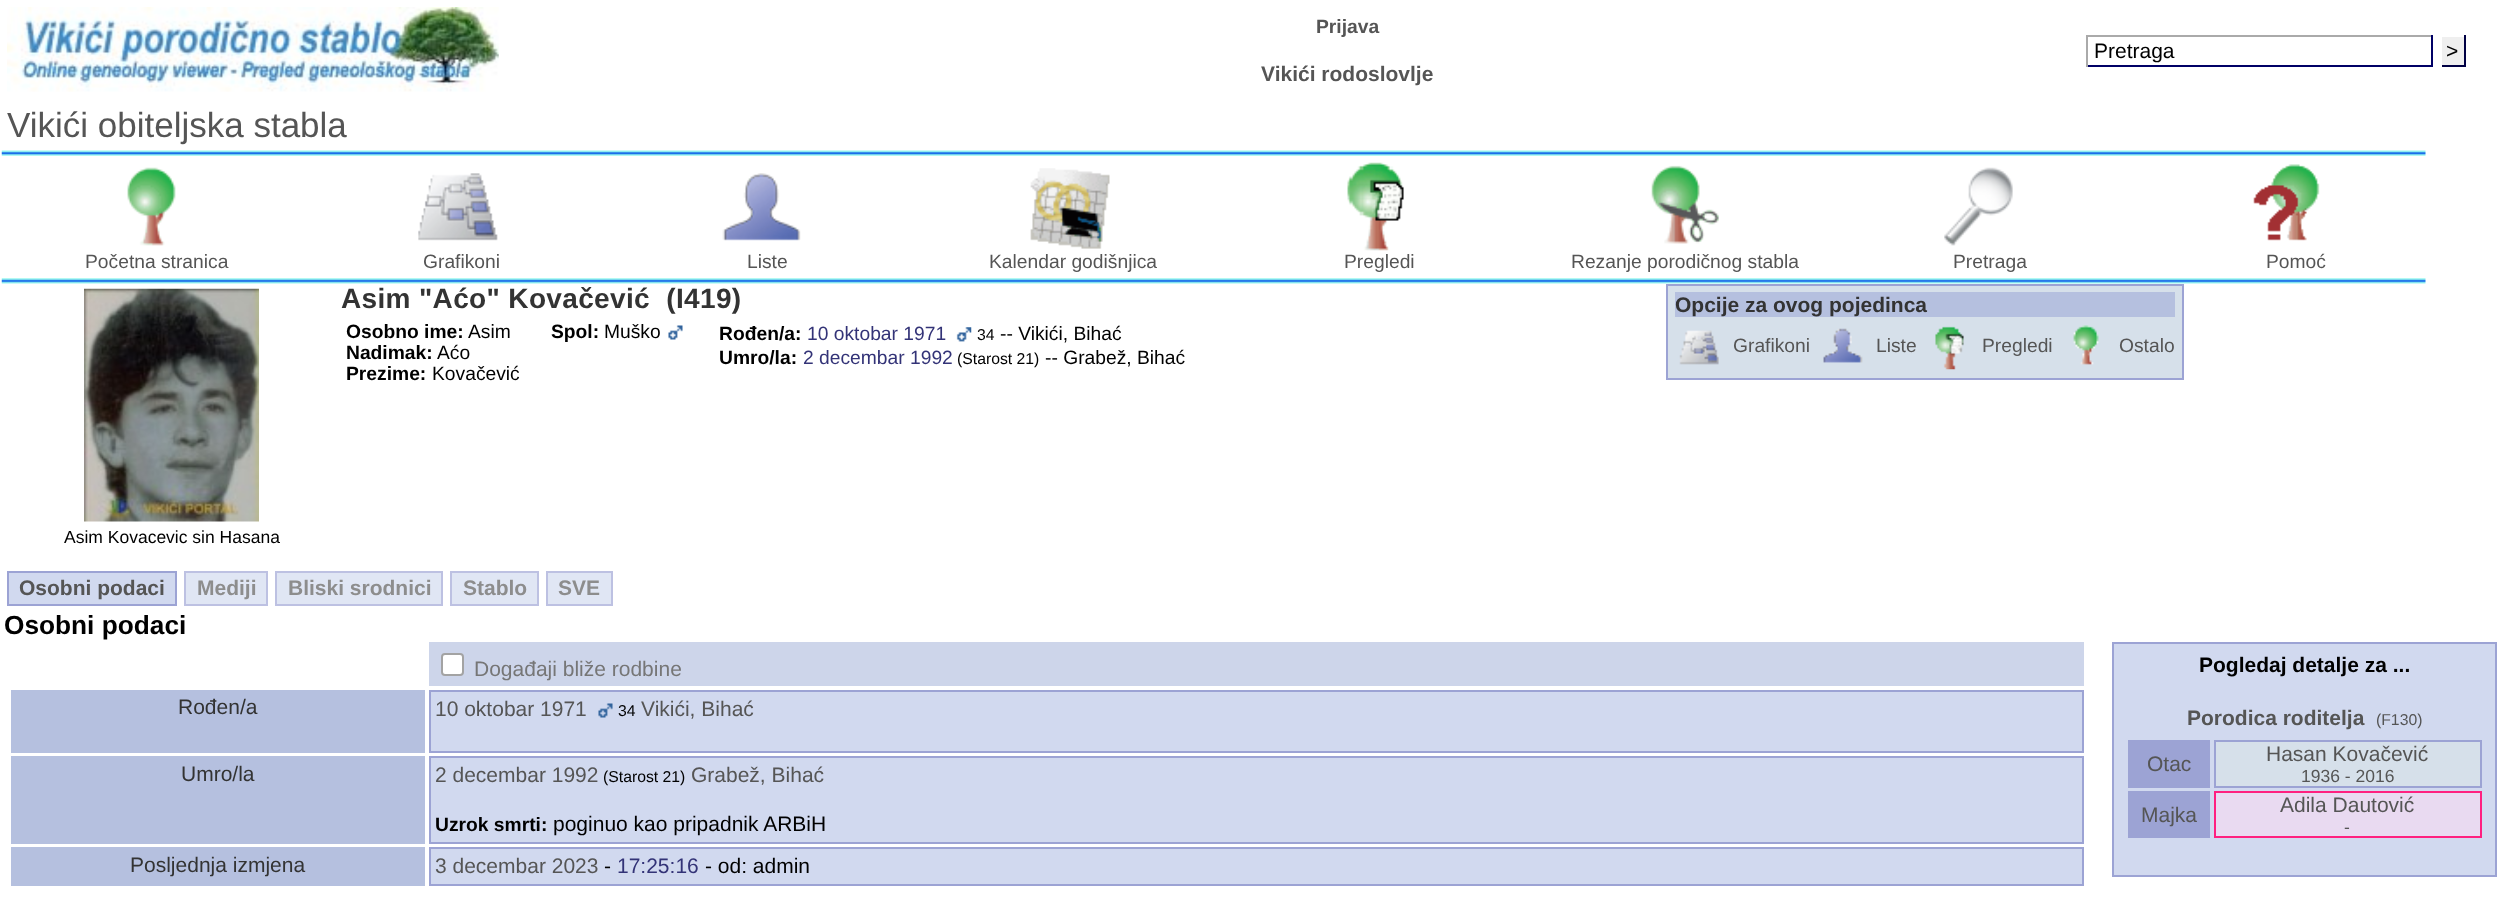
<svg xmlns="http://www.w3.org/2000/svg" width="2502" height="900" viewBox="0 0 2502 900">
  <rect width="100%" height="100%" fill="rgb(255,255,255)"/>
  <image x="7" y="7" width="492" height="85" href="pic1.png"/>
  <text x="1316" y="33" font-family="Liberation Sans" font-size="19.25" font-weight="bold" fill="rgb(85,85,85)">Prijava</text>
  <text x="1261" y="81" font-family="Liberation Sans" font-size="21" font-weight="bold" fill="rgb(85,85,85)">Vikići rodoslovlje</text>
  <rect x="2086" y="35" width="347" height="2" fill="rgb(170,170,170)"/>
  <rect x="2431" y="35" width="2" height="32" fill="rgb(0,0,102)"/>
  <rect x="2086" y="65" width="347" height="2" fill="rgb(0,0,102)"/>
  <rect x="2086" y="35" width="2" height="32" fill="rgb(170,170,170)"/>
  <text x="2094" y="58" font-family="Liberation Sans" font-size="21" fill="rgb(0,0,0)">Pretraga</text>
  <rect x="2442" y="37" width="22" height="28" fill="rgb(239,239,239)"/>
  <rect x="2464" y="35" width="2" height="32" fill="rgb(0,0,68)"/>
  <rect x="2440" y="65" width="26" height="2" fill="rgb(0,0,68)"/>
  <rect x="2440" y="65" width="2" height="2" fill="rgb(255,255,255)"/>
  <text x="2446" y="58" font-family="Liberation Sans" font-size="21" fill="rgb(0,0,0)">&gt;</text>
  <text x="7" y="137" font-family="Liberation Sans" font-size="35" fill="rgb(85,85,85)">Vikići obiteljska stabla</text>
  <image x="1" y="150" width="2425" height="6" href="pic2.png"/>
  <image x="127" y="167" width="49" height="79" href="pic3.png"/>
  <text x="85" y="268" font-family="Liberation Sans" font-size="19.25" fill="rgb(85,85,85)">Početna stranica</text>
  <image x="418" y="173" width="80" height="68" href="pic4.png"/>
  <text x="423" y="268" font-family="Liberation Sans" font-size="19.25" fill="rgb(85,85,85)">Grafikoni</text>
  <image x="722" y="173" width="79" height="68" href="pic5.png"/>
  <text x="747" y="268" font-family="Liberation Sans" font-size="19.25" fill="rgb(85,85,85)">Liste</text>
  <image x="1030" y="168" width="80" height="81" href="pic6.png"/>
  <text x="989" y="268" font-family="Liberation Sans" font-size="19.25" fill="rgb(85,85,85)">Kalendar godišnjica</text>
  <image x="1347" y="162" width="57" height="89" href="pic7.png"/>
  <text x="1344" y="268" font-family="Liberation Sans" font-size="19.25" fill="rgb(85,85,85)">Pregledi</text>
  <image x="1651" y="165" width="68" height="79" href="pic8.png"/>
  <text x="1571" y="268" font-family="Liberation Sans" font-size="19.25" fill="rgb(85,85,85)">Rezanje porodičnog stabla</text>
  <image x="1944" y="167" width="69" height="79" href="pic9.png"/>
  <text x="1953" y="268" font-family="Liberation Sans" font-size="19.25" fill="rgb(85,85,85)">Pretraga</text>
  <image x="2253" y="164" width="67" height="77" href="pic10.png"/>
  <text x="2266" y="268" font-family="Liberation Sans" font-size="19.25" fill="rgb(85,85,85)">Pomoć</text>
  <image x="1" y="278" width="2425" height="6" href="pic11.png"/>
  <text x="341" y="308" font-family="Liberation Sans" font-size="28" font-weight="bold" letter-spacing="0.35" fill="rgb(51,51,51)" xml:space="preserve">Asim "Aćo" Kovačević  (I419)</text>
  <text x="346" y="338" font-family="Liberation Sans" font-size="19.25" font-weight="bold" fill="rgb(0,0,0)">Osobno ime:</text>
  <text x="468" y="338" font-family="Liberation Sans" font-size="19.25" fill="rgb(0,0,0)">Asim</text>
  <text x="346" y="359" font-family="Liberation Sans" font-size="19.25" font-weight="bold" fill="rgb(0,0,0)">Nadimak:</text>
  <text x="437" y="359" font-family="Liberation Sans" font-size="19.25" fill="rgb(0,0,0)">Aćo</text>
  <text x="346" y="380" font-family="Liberation Sans" font-size="19.25" font-weight="bold" fill="rgb(0,0,0)">Prezime:</text>
  <text x="432" y="380" font-family="Liberation Sans" font-size="19.25" fill="rgb(0,0,0)">Kovačević</text>
  <text x="551" y="338" font-family="Liberation Sans" font-size="19.25" font-weight="bold" fill="rgb(0,0,0)">Spol:</text>
  <text x="604" y="338" font-family="Liberation Sans" font-size="19.25" fill="rgb(0,0,0)">Muško</text>
  <image x="668" y="325" width="15" height="15" href="pic12.png"/>
  <text x="719" y="340" font-family="Liberation Sans" font-size="19.25" font-weight="bold" fill="rgb(0,0,0)">Rođen/a:</text>
  <text x="807" y="340" font-family="Liberation Sans" font-size="19.25" fill="rgb(51,51,119)">10 oktobar 1971</text>
  <image x="956" y="327" width="16" height="15" href="pic13.png"/>
  <text x="977" y="340" font-family="Liberation Sans" font-size="15.75" fill="rgb(0,0,0)">34</text>
  <text x="1000" y="340" font-family="Liberation Sans" font-size="19.25" fill="rgb(0,0,0)">-- Vikići, Bihać</text>
  <text x="719" y="364" font-family="Liberation Sans" font-size="19.25" font-weight="bold" fill="rgb(0,0,0)">Umro/la:</text>
  <text x="803" y="364" font-family="Liberation Sans" font-size="19.25" fill="rgb(51,51,119)">2 decembar 1992</text>
  <text x="957" y="364" font-family="Liberation Sans" font-size="15.75" fill="rgb(0,0,0)">(Starost 21)</text>
  <text x="1045" y="364" font-family="Liberation Sans" font-size="19.25" fill="rgb(0,0,0)">-- Grabež, Bihać</text>
  <rect x="1667" y="285" width="516" height="94" fill="rgb(214,224,234)" stroke="rgb(156,163,212)" stroke-width="2"/>
  <rect x="1675" y="292" width="500" height="25" fill="rgb(181,192,223)"/>
  <text x="1675" y="312" font-family="Liberation Sans" font-size="21" font-weight="bold" fill="rgb(51,51,51)">Opcije za ovog pojedinca</text>
  <image x="1679" y="330" width="40" height="35" href="pic14.png"/>
  <text x="1733" y="352" font-family="Liberation Sans" font-size="19.25" fill="rgb(85,85,85)">Grafikoni</text>
  <image x="1823" y="328" width="40" height="35" href="pic15.png"/>
  <text x="1876" y="352" font-family="Liberation Sans" font-size="19.25" fill="rgb(85,85,85)">Liste</text>
  <image x="1935" y="326" width="29" height="44" href="pic16.png"/>
  <text x="1982" y="352" font-family="Liberation Sans" font-size="19.25" fill="rgb(85,85,85)">Pregledi</text>
  <image x="2073" y="325" width="26" height="40" href="pic17.png"/>
  <text x="2119" y="352" font-family="Liberation Sans" font-size="19.25" fill="rgb(85,85,85)">Ostalo</text>
  <image x="84" y="288" width="175" height="234" href="pic18.png"/>
  <text x="64" y="543" font-family="Liberation Sans" font-size="17.5" fill="rgb(0,0,0)">Asim Kovacevic sin Hasana</text>
  <rect x="8" y="572" width="168" height="33" fill="rgb(209,217,239)" stroke="rgb(156,163,212)" stroke-width="2"/>
  <text x="19" y="595" font-family="Liberation Sans" font-size="21" font-weight="bold" fill="rgb(85,85,85)">Osobni podaci</text>
  <rect x="185" y="572" width="82" height="33" fill="rgb(224,230,244)" stroke="rgb(189,193,226)" stroke-width="2"/>
  <text x="197" y="595" font-family="Liberation Sans" font-size="21" font-weight="bold" fill="rgb(141,141,141)">Mediji</text>
  <rect x="276" y="572" width="166" height="33" fill="rgb(224,230,244)" stroke="rgb(189,193,226)" stroke-width="2"/>
  <text x="288" y="595" font-family="Liberation Sans" font-size="21" font-weight="bold" fill="rgb(141,141,141)">Bliski srodnici</text>
  <rect x="451" y="572" width="87" height="33" fill="rgb(224,230,244)" stroke="rgb(189,193,226)" stroke-width="2"/>
  <text x="463" y="595" font-family="Liberation Sans" font-size="21" font-weight="bold" fill="rgb(141,141,141)">Stablo</text>
  <rect x="547" y="572" width="65" height="33" fill="rgb(224,230,244)" stroke="rgb(189,193,226)" stroke-width="2"/>
  <text x="558" y="595" font-family="Liberation Sans" font-size="21" font-weight="bold" fill="rgb(141,141,141)">SVE</text>
  <text x="4" y="634" font-family="Liberation Sans" font-size="26.25" font-weight="bold" fill="rgb(0,0,0)">Osobni podaci</text>
  <rect x="429" y="642" width="1655" height="44" fill="rgb(205,213,234)"/>
  <rect x="442" y="654" width="21" height="21" rx="3" fill="rgb(255,255,255)" stroke="rgb(163,163,163)" stroke-width="2"/>
  <text x="474" y="676" font-family="Liberation Sans" font-size="21" fill="rgb(118,118,118)">Događaji bliže rodbine</text>
  <rect x="11" y="690" width="414" height="63" fill="rgb(181,192,223)"/>
  <text x="178" y="714" font-family="Liberation Sans" font-size="21" fill="rgb(51,51,51)">Rođen/a</text>
  <rect x="430" y="691" width="1653" height="61" fill="rgb(209,217,239)" stroke="rgb(156,163,212)" stroke-width="2"/>
  <text x="435" y="716" font-family="Liberation Sans" font-size="21" fill="rgb(85,85,85)">10 oktobar 1971</text>
  <image x="598" y="703" width="15" height="15" href="pic19.png"/>
  <text x="618" y="716" font-family="Liberation Sans" font-size="15.75" fill="rgb(0,0,0)">34</text>
  <text x="641" y="716" font-family="Liberation Sans" font-size="21" fill="rgb(85,85,85)">Vikići, Bihać</text>
  <rect x="11" y="756" width="414" height="88" fill="rgb(181,192,223)"/>
  <text x="181" y="781" font-family="Liberation Sans" font-size="21" fill="rgb(51,51,51)">Umro/la</text>
  <rect x="430" y="757" width="1653" height="86" fill="rgb(209,217,239)" stroke="rgb(156,163,212)" stroke-width="2"/>
  <text x="435" y="782" font-family="Liberation Sans" font-size="21" fill="rgb(85,85,85)">2 decembar 1992</text>
  <text x="603" y="782" font-family="Liberation Sans" font-size="15.75" fill="rgb(0,0,0)">(Starost 21)</text>
  <text x="691" y="782" font-family="Liberation Sans" font-size="21" fill="rgb(85,85,85)">Grabež, Bihać</text>
  <text x="435" y="831" font-family="Liberation Sans" font-size="19.25" font-weight="bold" fill="rgb(0,0,0)">Uzrok smrti:</text>
  <text x="553" y="831" font-family="Liberation Sans" font-size="21" fill="rgb(0,0,0)">poginuo kao pripadnik ARBiH</text>
  <rect x="11" y="847" width="414" height="39" fill="rgb(181,192,223)"/>
  <text x="130" y="872" font-family="Liberation Sans" font-size="21" fill="rgb(51,51,51)">Posljednja izmjena</text>
  <rect x="430" y="848" width="1653" height="37" fill="rgb(209,217,239)" stroke="rgb(156,163,212)" stroke-width="2"/>
  <text x="435" y="873" font-family="Liberation Sans" font-size="21" fill="rgb(85,85,85)">3 decembar 2023</text>
  <text x="604" y="873" font-family="Liberation Sans" font-size="21" fill="rgb(0,0,0)">-</text>
  <text x="617" y="873" font-family="Liberation Sans" font-size="21" fill="rgb(51,51,119)">17:25:16</text>
  <text x="705" y="873" font-family="Liberation Sans" font-size="21" fill="rgb(0,0,0)">- od: admin</text>
  <rect x="2113" y="643" width="383" height="233" fill="rgb(209,217,239)" stroke="rgb(156,163,212)" stroke-width="2"/>
  <text x="2199" y="672" font-family="Liberation Sans" font-size="21" font-weight="bold" fill="rgb(0,0,0)">Pogledaj detalje za ...</text>
  <text x="2187" y="725" font-family="Liberation Sans" font-size="21" font-weight="bold" fill="rgb(85,85,85)">Porodica roditelja</text>
  <text x="2376" y="725" font-family="Liberation Sans" font-size="15.75" fill="rgb(85,85,85)">(F130)</text>
  <rect x="2128" y="740" width="82" height="48" fill="rgb(156,163,212)"/>
  <text x="2147" y="771" font-family="Liberation Sans" font-size="21" fill="rgb(85,85,85)">Otac</text>
  <rect x="2215" y="741" width="266" height="46" fill="rgb(214,224,234)" stroke="rgb(156,163,212)" stroke-width="2"/>
  <text x="2266" y="761" font-family="Liberation Sans" font-size="21" fill="rgb(85,85,85)">Hasan Kovačević</text>
  <text x="2301" y="782" font-family="Liberation Sans" font-size="17.5" fill="rgb(85,85,85)">1936 - 2016</text>
  <rect x="2128" y="791" width="82" height="47" fill="rgb(156,163,212)"/>
  <text x="2141" y="822" font-family="Liberation Sans" font-size="21" fill="rgb(85,85,85)">Majka</text>
  <rect x="2215" y="792" width="266" height="45" fill="rgb(233,218,241)" stroke="rgb(255,32,128)" stroke-width="2"/>
  <text x="2280" y="812" font-family="Liberation Sans" font-size="21" fill="rgb(85,85,85)">Adila Dautović</text>
  <text x="2344" y="833" font-family="Liberation Sans" font-size="17.5" fill="rgb(85,85,85)">-</text>
</svg>
